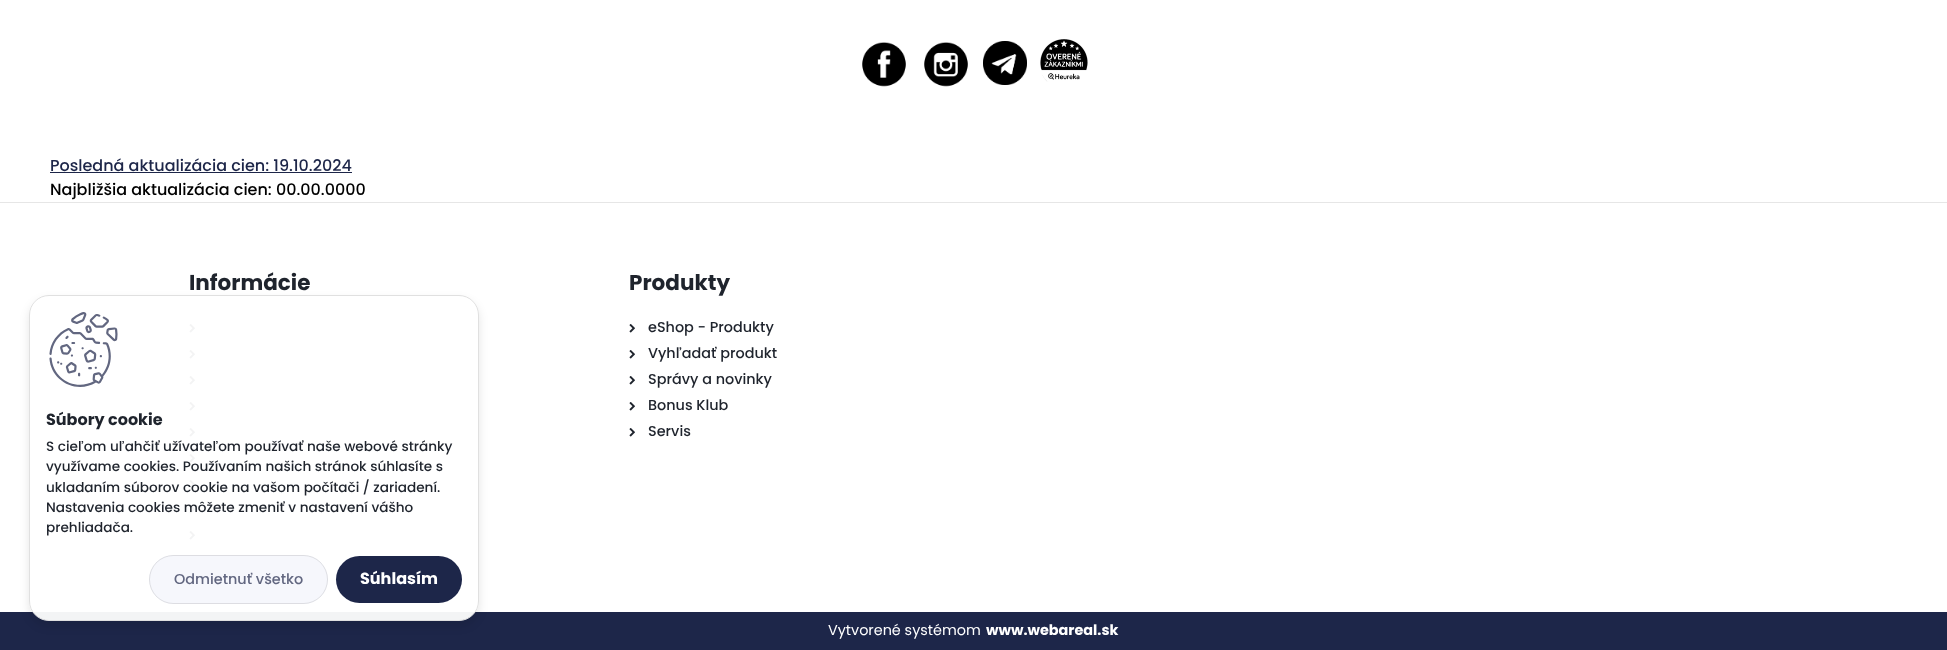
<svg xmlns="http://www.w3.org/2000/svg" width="1947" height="650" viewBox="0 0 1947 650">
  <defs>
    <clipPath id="clip1"><path d="M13 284H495V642H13ZM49 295H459C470 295 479 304 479 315V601C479 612 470 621 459 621H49C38 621 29 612 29 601V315C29 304 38 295 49 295Z" clip-rule="evenodd"/></clipPath>
  </defs>
  <rect width="100%" height="100%" fill="rgb(255,255,255)"/>
  <image x="862" y="42" width="44" height="45" href="pic1.png"/>
  <image x="924" y="42" width="44" height="45" href="pic2.png"/>
  <image x="983" y="41" width="44" height="44" href="pic3.png"/>
  <image x="1040" y="39" width="48" height="43" href="pic4.png"/>
  <text x="50" y="171" font-family="Poppins" font-size="16" font-weight="500" fill="rgb(29,38,73)">Posledná aktualizácia cien: 19.10.2024</text>
  <rect x="50" y="172" width="302" height="1" fill="rgb(29,38,73)"/>
  <text x="50" y="195" font-family="Poppins" font-size="16" font-weight="500" fill="rgb(0,0,0)">Najbližšia aktualizácia cien: 00.00.0000</text>
  <rect x="0" y="202" width="1947" height="1" fill="rgb(230,230,230)"/>
  <text x="189" y="290" font-family="Poppins" font-size="21.5" font-weight="bold" fill="rgb(31,36,45)">Informácie</text>
  <image x="189" y="324" width="6" height="9" href="pic5.png"/>
  <image x="189" y="350" width="6" height="9" href="pic5.png"/>
  <image x="189" y="376" width="6" height="9" href="pic5.png"/>
  <image x="189" y="402" width="6" height="9" href="pic5.png"/>
  <image x="189" y="428" width="6" height="9" href="pic5.png"/>
  <image x="189" y="454" width="6" height="9" href="pic5.png"/>
  <image x="189" y="480" width="6" height="9" href="pic5.png"/>
  <image x="189" y="505" width="6" height="9" href="pic5.png"/>
  <image x="189" y="531" width="6" height="9" href="pic5.png"/>
  <text x="629" y="290" font-family="Poppins" font-size="21.5" font-weight="bold" fill="rgb(31,36,45)">Produkty</text>
  <image x="629" y="324" width="6" height="9" href="pic5.png"/>
  <text x="648" y="332" font-family="Poppins" font-size="14.4" font-weight="500" fill="rgb(31,36,45)">eShop - Produkty</text>
  <image x="629" y="350" width="6" height="9" href="pic5.png"/>
  <text x="648" y="358" font-family="Poppins" font-size="14.4" font-weight="500" fill="rgb(31,36,45)">Vyhľadať produkt</text>
  <image x="629" y="376" width="6" height="9" href="pic5.png"/>
  <text x="648" y="384" font-family="Poppins" font-size="14.4" font-weight="500" fill="rgb(31,36,45)">Správy a novinky</text>
  <image x="629" y="402" width="6" height="9" href="pic5.png"/>
  <text x="648" y="410" font-family="Poppins" font-size="14.4" font-weight="500" fill="rgb(31,36,45)">Bonus Klub</text>
  <image x="629" y="428" width="6" height="9" href="pic5.png"/>
  <text x="648" y="436" font-family="Poppins" font-size="14.4" font-weight="500" fill="rgb(31,36,45)">Servis</text>
  <rect x="0" y="612" width="1947" height="38" fill="rgb(29,38,73)"/>
  <text x="828" y="635" font-family="Poppins" font-size="14.4" fill="rgb(255,255,255)">Vytvorené systémom</text>
  <text x="986" y="635" font-family="Poppins" font-size="14.4" font-weight="bold" fill="rgb(255,255,255)">www.webareal.sk</text>
  <g clip-path="url(#clip1)">
    <rect x="29" y="300" width="450" height="326" rx="20" fill="rgba(0,0,0,0.1)" filter="blur(5px)"/>
  </g>
  <rect x="29.5" y="295.5" width="449" height="325" rx="19.5" fill="rgba(255,255,255,0.95)" stroke="rgb(224,224,224)"/>
  <image x="49" y="312" width="69" height="75" href="pic6.png"/>
  <text x="46" y="425" font-family="Poppins" font-size="16" font-weight="bold" fill="rgb(31,36,45)">Súbory cookie</text>
  <g font-family="Poppins" font-size="13.6" font-weight="500" fill="rgb(31,36,45)">
    <text>
      <tspan x="46" y="451">S cieľom uľahčiť užívateľom používať naše webové stránky</tspan>
      <tspan x="46" y="471">využívame cookies. Používaním našich stránok súhlasíte s</tspan>
      <tspan x="46" y="492">ukladaním súborov cookie na vašom počítači / zariadení.</tspan>
      <tspan x="46" y="512">Nastavenia cookies môžete zmeniť v nastavení vášho</tspan>
      <tspan x="46" y="532">prehliadača.</tspan>
    </text>
  </g>
  <rect x="149" y="555" width="179" height="49" rx="24.5" fill="rgb(246,247,252)"/>
  <rect x="149.5" y="555.5" width="178" height="48" rx="24" fill="none" stroke="rgba(0,0,0,0.1)"/>
  <text x="174" y="584" font-family="Poppins" font-size="14.4" font-weight="500" fill="rgb(98,103,128)">Odmietnuť všetko</text>
  <rect x="336" y="556" width="126" height="47" rx="23.5" fill="rgb(29,38,73)"/>
  <text x="360" y="584" font-family="Poppins" font-size="16" font-weight="bold" fill="rgb(255,255,255)">Súhlasím</text>
</svg>
